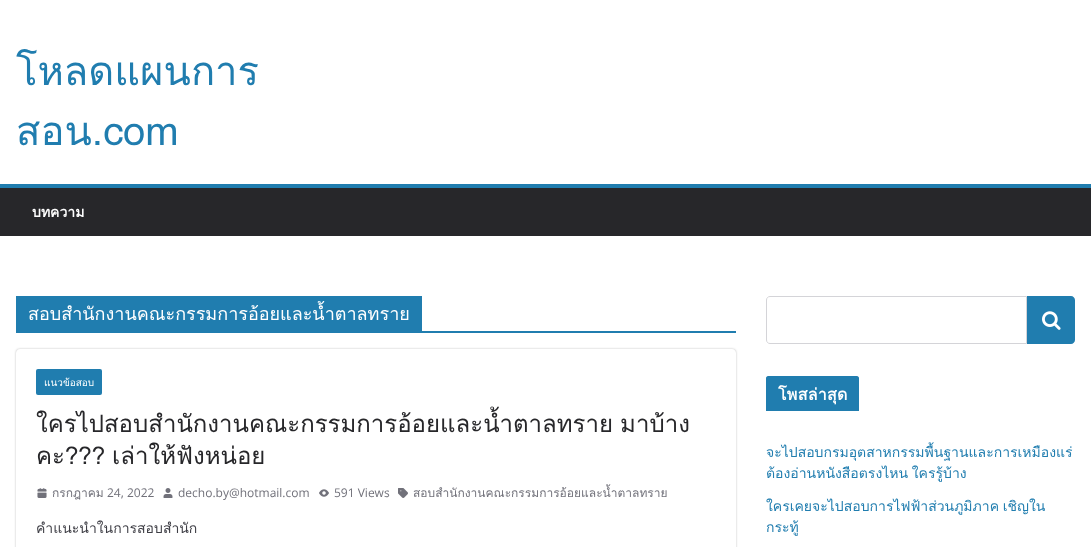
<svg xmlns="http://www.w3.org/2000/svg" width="1091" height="547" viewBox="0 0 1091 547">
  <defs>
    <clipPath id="clip1"><path d="M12 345H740V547H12ZM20 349H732C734 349 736 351 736 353V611C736 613 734 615 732 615H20C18 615 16 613 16 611V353C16 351 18 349 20 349Z" clip-rule="evenodd"/></clipPath>
  </defs>
  <rect width="100%" height="100%" fill="rgb(255,255,255)"/>
  <g font-family="Loma" font-size="40" fill="rgb(32,125,175)">
    <text>
      <tspan x="16" y="85">โหลดแผนการ</tspan>
      <tspan x="16" y="145">สอน.com</tspan>
    </text>
  </g>
  <rect x="0" y="188" width="1091" height="48" fill="rgb(39,39,42)"/>
  <rect x="0" y="184" width="1091" height="4" fill="rgb(32,125,175)"/>
  <text x="32" y="217" font-family="Loma" font-size="14" font-weight="bold" fill="rgb(255,255,255)">บทความ</text>
  <rect x="16" y="331" width="720" height="2" fill="rgb(32,125,175)"/>
  <rect x="16" y="296" width="406" height="35" fill="rgb(32,125,175)"/>
  <text x="28" y="320" font-family="Loma" font-size="18" fill="rgb(255,255,255)">สอบสำนักงานคณะกรรมการอ้อยและน้ำตาลทราย</text>
  <g clip-path="url(#clip1)">
    <rect x="16" y="349" width="720" height="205" rx="4" fill="rgba(0,0,0,0.24)" filter="blur(1px)"/>
  </g>
  <rect x="36" y="369" width="66" height="26" rx="2" fill="rgb(32,125,175)"/>
  <text x="44" y="386" font-family="Loma" font-size="10" fill="rgb(255,255,255)">แนวข้อสอบ</text>
  <g font-family="Loma" font-size="24" fill="rgb(39,39,42)">
    <text>
      <tspan x="36" y="432" word-spacing="-1">ใครไปสอบสำนักงานคณะกรรมการอ้อยและน้ำตาลทราย มาบ้าง</tspan>
      <tspan x="36" y="464" word-spacing="-1">คะ??? เล่าให้ฟังหน่อย</tspan>
    </text>
  </g>
  <image x="37" y="488" width="10" height="10" href="pic1.png"/>
  <text x="52" y="497" font-family="Loma" font-size="12" fill="rgb(113,113,122)">กรกฎาคม</text>
  <text x="107" y="497" font-family="Open Sans" font-size="12" fill="rgb(113,113,122)">24, 2022</text>
  <image x="163" y="488" width="10" height="10" href="pic2.png"/>
  <text x="178" y="497" font-family="Open Sans" font-size="12" fill="rgb(113,113,122)">decho.by@hotmail.com</text>
  <image x="319" y="489" width="10" height="8" href="pic3.png"/>
  <text x="334" y="497" font-family="Open Sans" font-size="12" fill="rgb(113,113,122)">591 Views</text>
  <image x="398" y="488" width="10" height="10" href="pic4.png"/>
  <text x="413" y="497" font-family="Loma" font-size="12" fill="rgb(113,113,122)">สอบสำนักงานคณะกรรมการอ้อยและน้ำตาลทราย</text>
  <text x="36" y="533" font-family="Loma" font-size="14" fill="rgb(63,63,70)">คำแนะนำในการสอบสำนัก</text>
  <path d="M770 296.5H1026.5V343.5H770C768 343.5 766.5 342 766.5 340V300C766.5 298 768 296.5 770 296.5Z" fill="none" stroke="rgb(212,212,216)"/>
  <path d="M1027 296H1071C1073 296 1075 298 1075 300V340C1075 342 1073 344 1071 344H1027Z" fill="rgb(32,125,175)"/>
  <image x="1042" y="311" width="19" height="19" href="pic5.png"/>
  <path d="M768 376H857C858 376 859 377 859 378V411H766V378C766 377 767 376 768 376Z" fill="rgb(32,125,175)"/>
  <text x="778" y="400" font-family="Loma" font-size="16" font-weight="bold" letter-spacing="0.25" fill="rgb(255,255,255)">โพสล่าสุด</text>
  <g font-family="Loma" font-size="14" fill="rgb(32,125,175)">
    <text>
      <tspan x="766" y="457">จะไปสอบกรมอุตสาหกรรมพื้นฐานและการเหมืองแร่</tspan>
      <tspan x="766" y="478" word-spacing="-1">ต้องอ่านหนังสือตรงไหน ใครรู้บ้าง</tspan>
    </text>
    <text>
      <tspan x="766" y="511" word-spacing="-1">ใครเคยจะไปสอบการไฟฟ้าส่วนภูมิภาค เชิญใน</tspan>
      <tspan x="766" y="532">กระทู้</tspan>
    </text>
  </g>
</svg>
